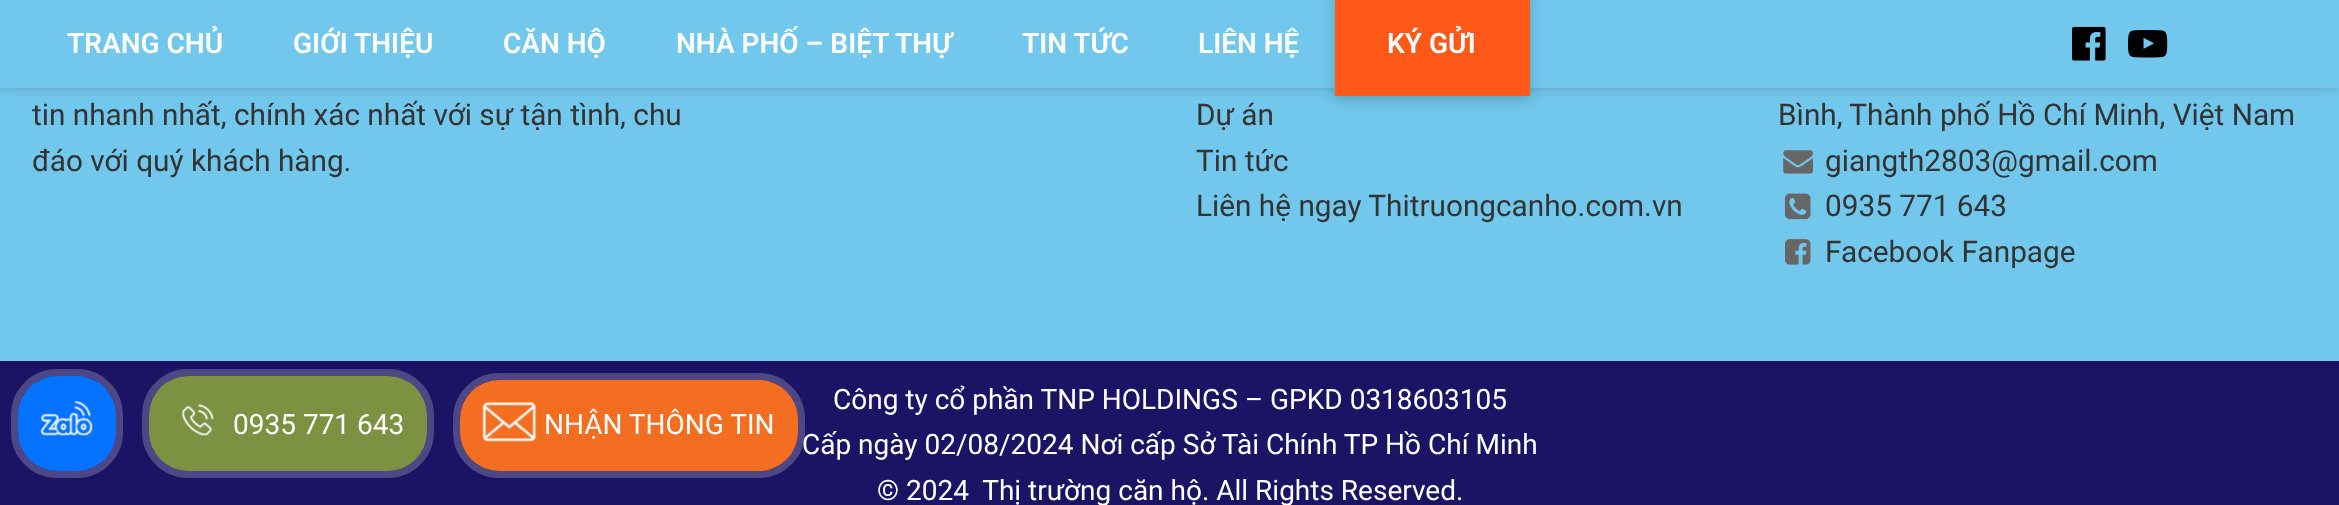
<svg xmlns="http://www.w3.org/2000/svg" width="2339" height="505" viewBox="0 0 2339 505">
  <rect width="100%" height="100%" fill="rgb(114,200,236)"/>
  <rect x="0" y="-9" width="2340" height="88" fill="rgb(51,51,51)" filter="blur(9px)"/>
  <rect x="0" y="0" width="2339" height="88" fill="rgb(114,200,236)"/>
  <g font-family="Roboto" font-size="28" font-weight="600" fill="rgb(255,255,255)">
    <text x="67" y="53">TRANG CHỦ</text>
    <text x="293" y="53">GIỚI THIỆU</text>
    <text x="503" y="53">CĂN HỘ</text>
    <text x="676" y="53">NHÀ PHỐ – BIỆT THỰ</text>
    <text x="1022" y="53">TIN TỨC</text>
    <text x="1198" y="53">LIÊN HỆ</text>
  </g>
  <rect x="1335" y="-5" width="195" height="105" fill="rgba(0,0,0,0.2)" filter="blur(7px)"/>
  <rect x="1335" y="0" width="195" height="96" fill="rgb(255,88,25)"/>
  <text x="1387" y="53" font-family="Roboto" font-size="28" font-weight="600" fill="rgb(255,255,255)">KÝ GỬI</text>
  <image x="2072" y="26" width="34" height="35" href="pic1.png"/>
  <image x="2128" y="30" width="40" height="28" href="pic2.png"/>
  <g font-family="Roboto" font-size="29.75" fill="rgb(51,51,51)">
    <text>
      <tspan x="32" y="125">tin nhanh nhất, chính xác nhất với sự tận tình, chu</tspan>
      <tspan x="32" y="171">đáo với quý khách hàng.</tspan>
    </text>
    <text>
      <tspan x="1196" y="125">Dự án</tspan>
      <tspan x="1196" y="171">Tin tức</tspan>
      <tspan x="1196" y="216">Liên hệ ngay Thitruongcanho.com.vn</tspan>
    </text>
    <text x="1778" y="125">Bình, Thành phố Hồ Chí Minh, Việt Nam</text>
  </g>
  <image x="1783" y="150" width="30" height="24" href="pic3.png"/>
  <text x="1825" y="171" font-family="Roboto" font-size="29.75" fill="rgb(51,51,51)">giangth2803@gmail.com</text>
  <image x="1785" y="193" width="26" height="27" href="pic4.png"/>
  <text x="1825" y="216" font-family="Roboto" font-size="29.75" fill="rgb(51,51,51)">0935 771 643</text>
  <image x="1785" y="239" width="26" height="26" href="pic5.png"/>
  <text x="1825" y="262" font-family="Roboto" font-size="29.75" fill="rgb(51,51,51)">Facebook Fanpage</text>
  <rect x="0" y="361" width="2339" height="144" fill="rgb(27,20,100)"/>
  <g font-family="Roboto" font-size="28" fill="rgb(255,255,255)">
    <text x="833" y="409">Công ty cổ phần TNP HOLDINGS – GPKD 0318603105</text>
    <text x="802" y="454">Cấp ngày 02/08/2024 Nơi cấp Sở Tài Chính TP Hồ Chí Minh</text>
    <text x="877" y="500" xml:space="preserve">© 2024  Thị trường căn hộ. All Rights Reserved.</text>
  </g>
  <rect x="18" y="376" width="98" height="95" rx="39" fill="rgb(5,115,255)"/>
  <image x="40" y="401" width="53" height="35" href="pic6.png"/>
  <rect x="14.5" y="372.5" width="105" height="102" rx="42.5" fill="none" stroke="rgba(255,255,255,0.22)" stroke-width="7"/>
  <rect x="149" y="376" width="278" height="95" rx="39" fill="rgb(125,145,67)"/>
  <image x="182" y="404" width="32" height="32" href="pic7.png"/>
  <rect x="145.5" y="372.5" width="285" height="102" rx="42.5" fill="none" stroke="rgba(255,255,255,0.22)" stroke-width="7"/>
  <text x="233" y="434" font-family="Roboto" font-size="28" fill="rgb(255,255,255)">0935 771 643</text>
  <rect x="460" y="380" width="338" height="91" rx="39" fill="rgb(243,110,32)"/>
  <image x="482" y="402" width="55" height="40" href="pic8.png"/>
  <rect x="456.5" y="376.5" width="345" height="98" rx="42.5" fill="none" stroke="rgba(255,255,255,0.22)" stroke-width="7"/>
  <text x="544" y="434" font-family="Roboto" font-size="28" fill="rgb(255,255,255)">NHẬN THÔNG TIN</text>
</svg>
